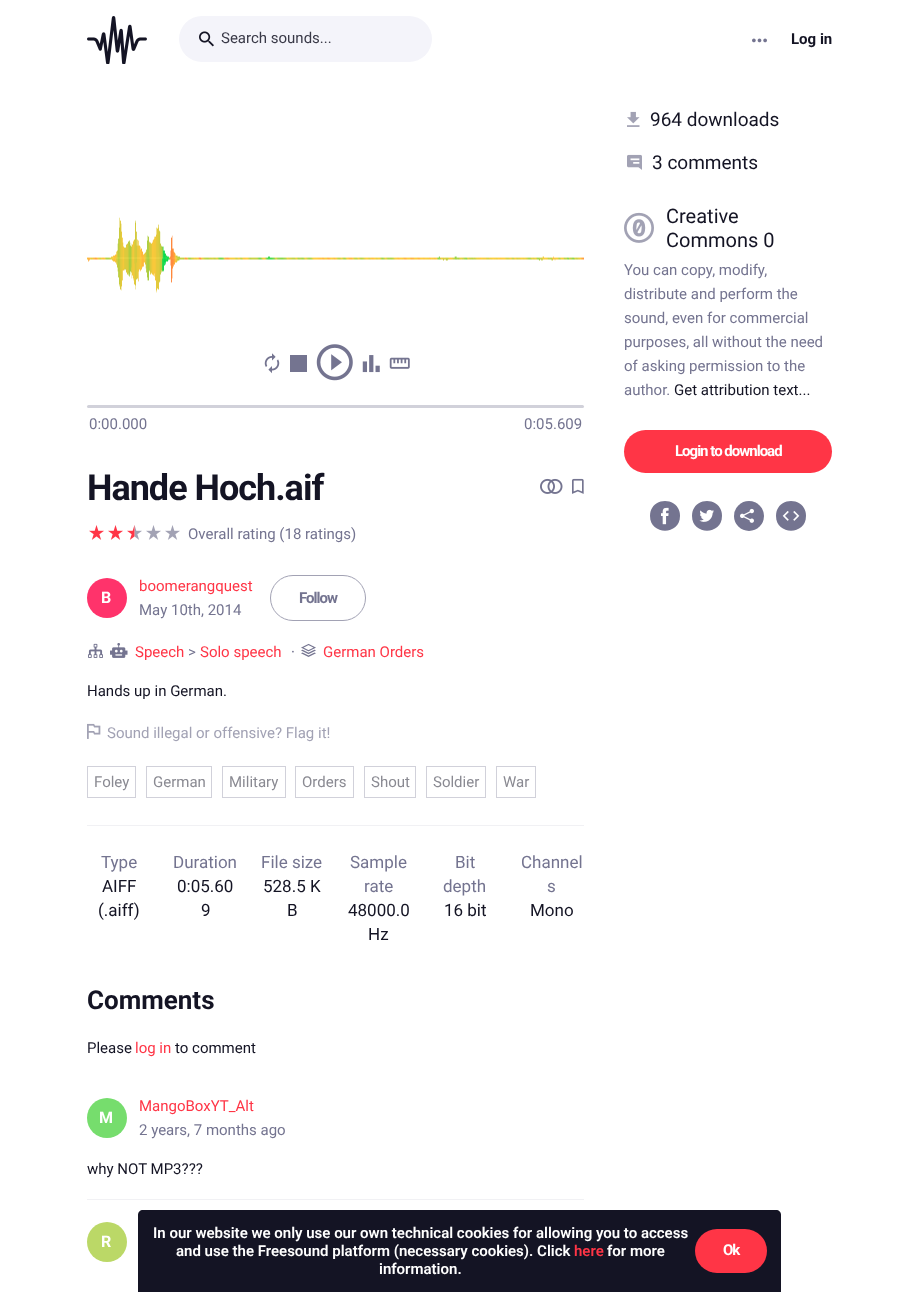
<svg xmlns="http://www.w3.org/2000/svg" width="919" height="1292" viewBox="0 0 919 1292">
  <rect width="100%" height="100%" fill="rgb(255,255,255)"/>
  <image x="87" y="16" width="60" height="48" href="pic1.png"/>
  <rect x="179" y="16" width="253" height="46" rx="23" fill="rgb(244,244,250)"/>
  <image x="199" y="31" width="15" height="16" href="pic2.png"/>
  <text x="221" y="43" font-family="Roboto" font-size="15" fill="rgb(57,57,71)">Search sounds...</text>
  <image x="752" y="38" width="15" height="5" href="pic3.png"/>
  <text x="791" y="44" font-family="Roboto" font-size="15" font-weight="bold" fill="rgb(20,20,36)">Log in</text>
  <image x="627" y="111" width="13" height="16" href="pic4.png"/>
  <text x="650" y="126" font-family="Roboto" font-size="19" fill="rgb(20,20,36)">964 downloads</text>
  <image x="627" y="154" width="15" height="16" href="pic5.png"/>
  <text x="652" y="169" font-family="Roboto" font-size="19" fill="rgb(20,20,36)">3 comments</text>
  <image x="624" y="212" width="30" height="31" href="pic6.png"/>
  <g font-family="Roboto" font-size="20" fill="rgb(20,20,36)">
    <text>
      <tspan x="666" y="223">Creative</tspan>
      <tspan x="666" y="247">Commons 0</tspan>
    </text>
  </g>
  <g font-family="Roboto" font-size="15" fill="rgb(116,116,144)">
    <text>
      <tspan x="624" y="275">You can copy, modify,</tspan>
      <tspan x="624" y="299">distribute and perform the</tspan>
      <tspan x="624" y="323">sound, even for commercial</tspan>
      <tspan x="624" y="347">purposes, all without the need</tspan>
      <tspan x="624" y="371">of asking permission to the</tspan>
      <tspan x="624" y="395">author.</tspan>
    </text>
  </g>
  <text x="674" y="395" font-family="Roboto" font-size="15" fill="rgb(20,20,36)">Get attribution text...</text>
  <rect x="624" y="430" width="208" height="43" rx="21.5" fill="rgb(255,53,70)"/>
  <text x="675" y="456" font-family="Roboto" font-size="15" font-weight="bold" letter-spacing="-1" fill="rgb(255,255,255)">Login to download</text>
  <path d="M650 516C650 496 680 496 680 516C680 535.5 650 535.5 650 516Z" fill="rgb(116,116,144)"/>
  <image x="661" y="507" width="8" height="18" href="pic7.png"/>
  <path d="M692 516C692 496 722 496 722 516C722 535.5 692 535.5 692 516Z" fill="rgb(116,116,144)"/>
  <image x="699" y="509" width="15" height="13" href="pic8.png"/>
  <circle cx="749" cy="516" r="15" fill="rgb(116,116,144)"/>
  <image x="740" y="508" width="14" height="15" href="pic9.png"/>
  <path d="M776 516C776 496 806 496 806 516C806 535.5 776 535.5 776 516Z" fill="rgb(116,116,144)"/>
  <image x="782" y="511" width="18" height="10" href="pic10.png"/>
  <image x="87" y="217" width="497" height="76" href="pic11.png"/>
  <image x="264" y="353" width="16" height="21" href="pic12.png"/>
  <rect x="290" y="355" width="17" height="17" fill="rgb(116,116,144)"/>
  <image x="316" y="344" width="37" height="37" href="pic13.png"/>
  <image x="362" y="355" width="18" height="18" href="pic14.png"/>
  <image x="389" y="357" width="21" height="12" href="pic15.png"/>
  <rect x="87" y="405" width="497" height="3" rx="1.5" fill="rgb(209,209,218)"/>
  <g font-family="Roboto" font-size="15" fill="rgb(116,116,144)">
    <text x="89" y="429">0:00.000</text>
    <text x="524" y="429">0:05.609</text>
  </g>
  <text x="87" y="500" font-family="Roboto" font-size="36" font-weight="bold" letter-spacing="-1" fill="rgb(20,20,36)">Hande Hoch.aif</text>
  <image x="540" y="478" width="23" height="16" href="pic16.png"/>
  <image x="572" y="478" width="12" height="16" href="pic17.png"/>
  <image x="89" y="525" width="15" height="15" href="pic18.png"/>
  <image x="108" y="525" width="15" height="15" href="pic18.png"/>
  <image x="134" y="525" width="8" height="15" href="pic20.png"/>
  <image x="127" y="525" width="8" height="15" href="pic19.png"/>
  <image x="146" y="525" width="15" height="15" href="pic21.png"/>
  <image x="165" y="525" width="15" height="15" href="pic21.png"/>
  <text x="188" y="539" font-family="Roboto" font-size="15" fill="rgb(116,116,144)">Overall rating (18 ratings)</text>
  <circle cx="107" cy="598" r="20" fill="rgb(255,51,107)"/>
  <text x="101" y="603" font-family="Roboto" font-size="16" font-weight="bold" fill="rgb(255,255,255)">B</text>
  <text x="139" y="591" font-family="Roboto" font-size="15" fill="rgb(255,53,70)">boomerangquest</text>
  <text x="139" y="615" font-family="Roboto" font-size="15" fill="rgb(116,116,144)">May 10th, 2014</text>
  <rect x="270.5" y="575.5" width="95" height="45" rx="22.5" fill="none" stroke="rgb(162,162,180)"/>
  <text x="299" y="603" font-family="Roboto" font-size="15" font-weight="bold" letter-spacing="-1" fill="rgb(116,116,144)">Follow</text>
  <image x="88" y="643" width="15" height="15" href="pic22.png"/>
  <image x="110" y="643" width="18" height="15" href="pic23.png"/>
  <text x="135" y="657" font-family="Roboto" font-size="15" fill="rgb(255,53,70)">Speech</text>
  <text x="188" y="657" font-family="Roboto" font-size="15" fill="rgb(116,116,144)">&gt;</text>
  <text x="200" y="657" font-family="Roboto" font-size="15" fill="rgb(255,53,70)">Solo speech</text>
  <text x="291" y="657" font-family="Roboto" font-size="15" fill="rgb(116,116,144)">·</text>
  <image x="301" y="643" width="15" height="14" href="pic24.png"/>
  <text x="323" y="657" font-family="Roboto" font-size="15" fill="rgb(255,53,70)">German Orders</text>
  <text x="87" y="696" font-family="Roboto" font-size="15" fill="rgb(20,20,36)">Hands up in German.</text>
  <image x="87" y="723" width="14" height="16" href="pic25.png"/>
  <text x="107" y="738" font-family="Roboto" font-size="15" fill="rgb(162,162,180)">Sound illegal or offensive? Flag it!</text>
  <rect x="87.5" y="766.5" width="48" height="31" fill="none" stroke="rgb(209,209,218)"/>
  <text x="94" y="787" font-family="Roboto" font-size="15" fill="rgb(138,138,146)">Foley</text>
  <rect x="146.5" y="766.5" width="65" height="31" fill="none" stroke="rgb(209,209,218)"/>
  <text x="153" y="787" font-family="Roboto" font-size="15" fill="rgb(138,138,146)">German</text>
  <rect x="222.5" y="766.5" width="63" height="31" fill="none" stroke="rgb(209,209,218)"/>
  <text x="229" y="787" font-family="Roboto" font-size="15" fill="rgb(138,138,146)">Military</text>
  <rect x="295.5" y="766.5" width="58" height="31" fill="none" stroke="rgb(209,209,218)"/>
  <text x="302" y="787" font-family="Roboto" font-size="15" fill="rgb(138,138,146)">Orders</text>
  <rect x="364.5" y="766.5" width="51" height="31" fill="none" stroke="rgb(209,209,218)"/>
  <text x="371" y="787" font-family="Roboto" font-size="15" fill="rgb(138,138,146)">Shout</text>
  <rect x="426.5" y="766.5" width="59" height="31" fill="none" stroke="rgb(209,209,218)"/>
  <text x="433" y="787" font-family="Roboto" font-size="15" fill="rgb(138,138,146)">Soldier</text>
  <rect x="496.5" y="766.5" width="39" height="31" fill="none" stroke="rgb(209,209,218)"/>
  <text x="503" y="787" font-family="Roboto" font-size="15" fill="rgb(138,138,146)">War</text>
  <rect x="87" y="825" width="497" height="1" fill="rgb(241,241,244)"/>
  <text x="101" y="868" font-family="Roboto" font-size="17" fill="rgb(116,116,144)">Type</text>
  <g font-family="Roboto" font-size="17" fill="rgb(20,20,36)">
    <text x="102" y="892">AIFF</text>
    <text x="98" y="916">(.aiff)</text>
  </g>
  <text x="173" y="868" font-family="Roboto" font-size="17" fill="rgb(116,116,144)">Duration</text>
  <g font-family="Roboto" font-size="17" fill="rgb(20,20,36)">
    <text x="177" y="892">0:05.60</text>
    <text x="201" y="916">9</text>
  </g>
  <text x="261" y="868" font-family="Roboto" font-size="17" fill="rgb(116,116,144)">File size</text>
  <g font-family="Roboto" font-size="17" fill="rgb(20,20,36)">
    <text x="263" y="892">528.5 K</text>
    <text x="287" y="916">B</text>
  </g>
  <g font-family="Roboto" font-size="17" fill="rgb(116,116,144)">
    <text x="350" y="868">Sample</text>
    <text x="364" y="892">rate</text>
  </g>
  <g font-family="Roboto" font-size="17" fill="rgb(20,20,36)">
    <text x="348" y="916">48000.0</text>
    <text x="368" y="940">Hz</text>
  </g>
  <g font-family="Roboto" font-size="17" fill="rgb(116,116,144)">
    <text x="455" y="868">Bit</text>
    <text x="443" y="892">depth</text>
  </g>
  <text x="444" y="916" font-family="Roboto" font-size="17" fill="rgb(20,20,36)">16 bit</text>
  <g font-family="Roboto" font-size="17" fill="rgb(116,116,144)">
    <text x="521" y="868">Channel</text>
    <text x="547" y="892">s</text>
  </g>
  <text x="530" y="916" font-family="Roboto" font-size="17" fill="rgb(20,20,36)">Mono</text>
  <text x="87" y="1009" font-family="Roboto" font-size="26" font-weight="bold" fill="rgb(20,20,36)">Comments</text>
  <text x="87" y="1053" font-family="Roboto" font-size="15" fill="rgb(20,20,36)">Please</text>
  <text x="135" y="1053" font-family="Roboto" font-size="15" fill="rgb(255,53,70)">log in</text>
  <text x="175" y="1053" font-family="Roboto" font-size="15" fill="rgb(20,20,36)">to comment</text>
  <circle cx="107" cy="1118" r="20" fill="rgb(118,221,109)"/>
  <text x="99" y="1123" font-family="Roboto" font-size="16" font-weight="bold" fill="rgb(255,255,255)">M</text>
  <text x="139" y="1111" font-family="Roboto" font-size="15" fill="rgb(255,53,70)">MangoBoxYT_Alt</text>
  <text x="139" y="1135" font-family="Roboto" font-size="15" fill="rgb(116,116,144)">2 years, 7 months ago</text>
  <text x="87" y="1174" font-family="Roboto" font-size="15" fill="rgb(20,20,36)">why NOT MP3???</text>
  <rect x="87" y="1199" width="497" height="1" fill="rgb(241,241,244)"/>
  <circle cx="107" cy="1242" r="20" fill="rgb(187,216,103)"/>
  <text x="101" y="1247" font-family="Roboto" font-size="16" font-weight="bold" fill="rgb(255,255,255)">R</text>
  <path d="M143 1210H776C779 1210 781 1212 781 1215V1292H138V1215C138 1212 140 1210 143 1210Z" fill="rgb(20,20,36)"/>
  <g font-family="Roboto" font-size="15" font-weight="600" fill="rgb(255,255,255)">
    <text x="153" y="1238">In our website we only use our own technical cookies for allowing you to access</text>
    <text x="176" y="1256">and use the Freesound platform (necessary cookies). Click</text>
  </g>
  <text x="574" y="1256" font-family="Roboto" font-size="15" font-weight="600" fill="rgb(255,53,70)">here</text>
  <g font-family="Roboto" font-size="15" font-weight="600" fill="rgb(255,255,255)">
    <text x="607" y="1256">for more</text>
    <text x="379" y="1274">information.</text>
  </g>
  <rect x="695" y="1229" width="72" height="44" rx="22" fill="rgb(255,53,70)"/>
  <text x="723" y="1255" font-family="Roboto" font-size="15" font-weight="bold" letter-spacing="-1" fill="rgb(255,255,255)">Ok</text>
</svg>
